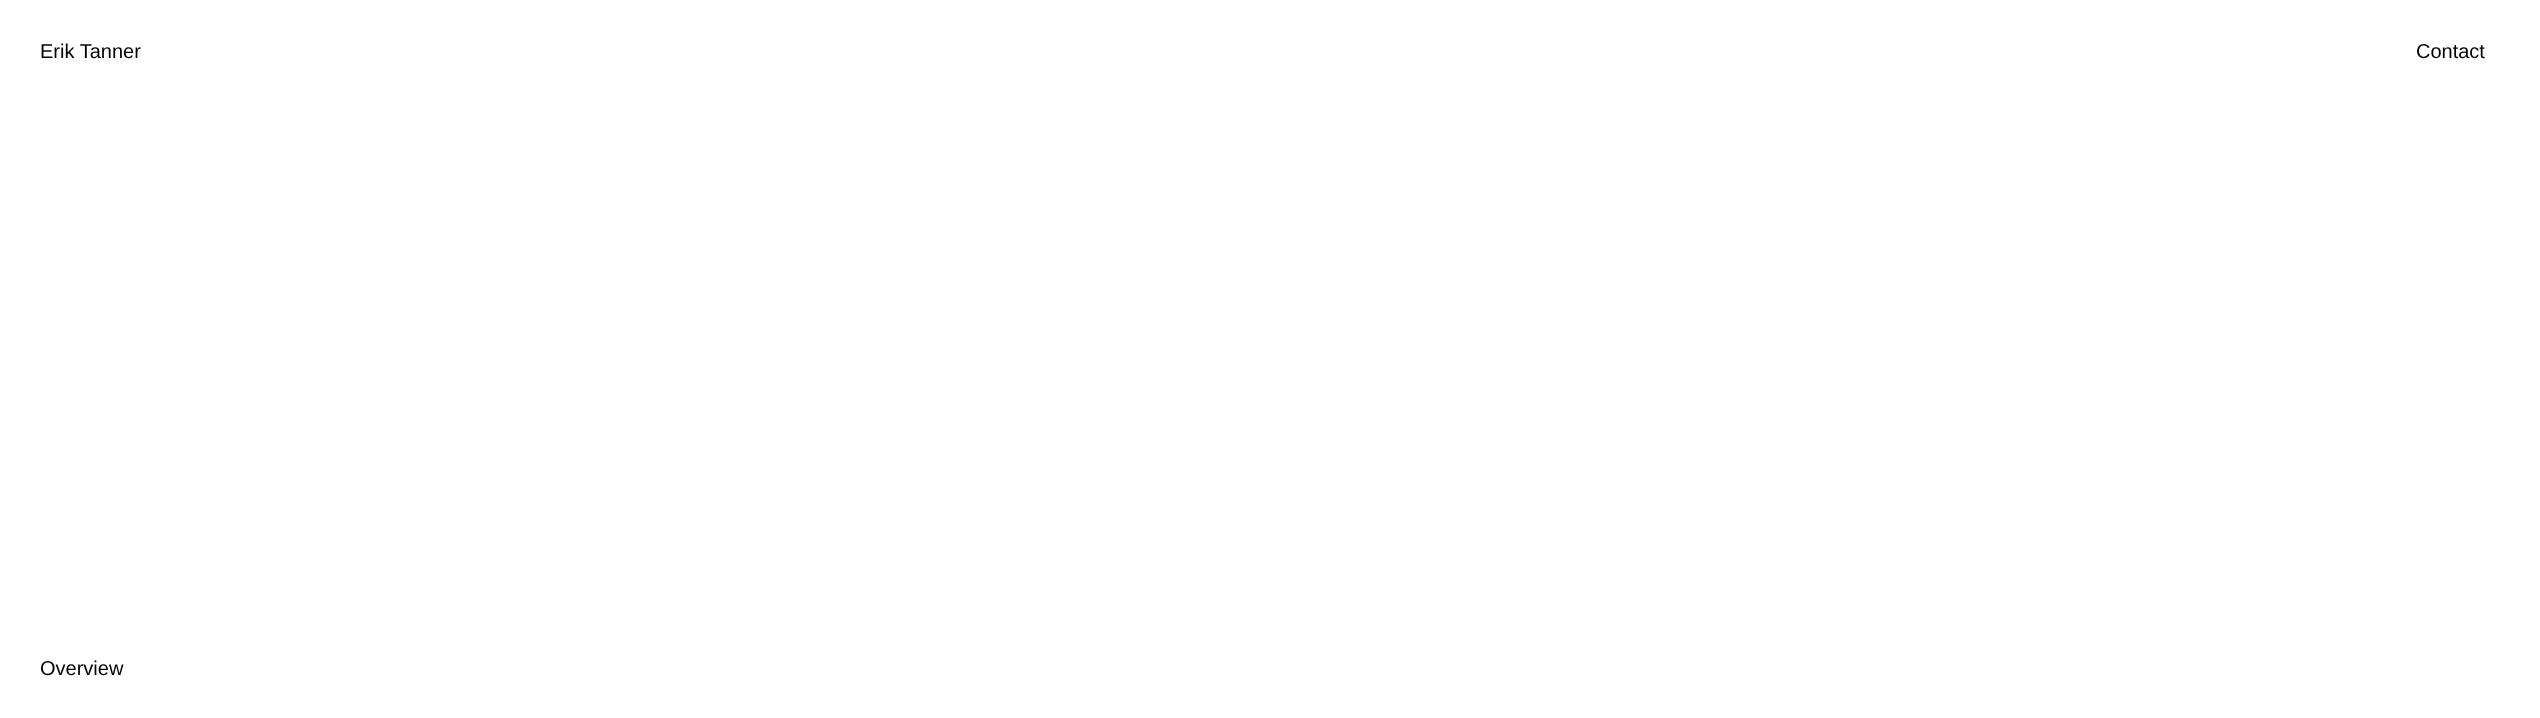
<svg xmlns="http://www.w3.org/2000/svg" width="2540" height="718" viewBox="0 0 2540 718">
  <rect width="100%" height="100%" fill="rgb(255,255,255)"/>
  <g font-family="Liberation Sans" font-size="20" fill="rgb(0,0,0)">
    <text x="40" y="58">Erik Tanner</text>
    <text x="2416" y="58">Contact</text>
    <text x="40" y="675">Overview</text>
  </g>
</svg>
